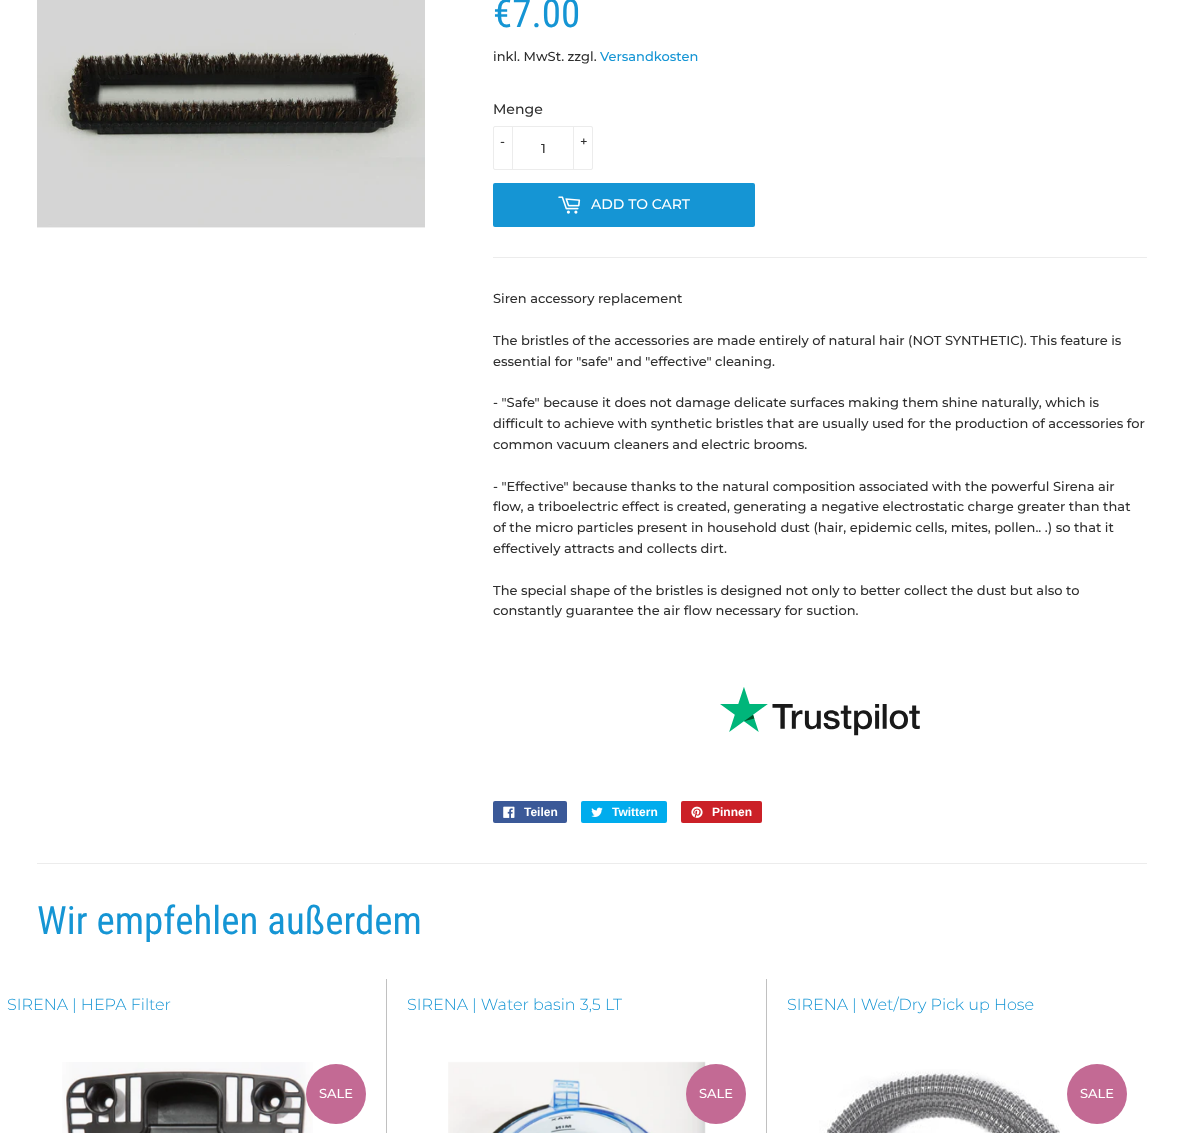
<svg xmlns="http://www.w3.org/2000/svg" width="1184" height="1133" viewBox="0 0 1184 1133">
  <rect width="100%" height="100%" fill="rgb(255,255,255)"/>
  <image x="37" y="0" width="388" height="228" href="pic1.png"/>
  <text x="493" y="27" font-family="Roboto Condensed" font-size="39" fill="rgb(21,149,212)">€7.00</text>
  <text x="493" y="61" font-family="Montserrat" font-size="13" font-weight="500" fill="rgb(47,47,47)">inkl. MwSt. zzgl.</text>
  <text x="600" y="61" font-family="Montserrat" font-size="13" font-weight="500" fill="rgb(21,149,212)">Versandkosten</text>
  <text x="493" y="114" font-family="Montserrat" font-size="14" font-weight="500" fill="rgb(47,47,47)">Menge</text>
  <rect x="493.5" y="126.5" width="99" height="43" rx="1.5" fill="none" stroke="rgb(236,236,236)"/>
  <rect x="512" y="126" width="1" height="44" fill="rgb(236,236,236)"/>
  <text x="500" y="146" font-family="Montserrat" font-size="13" font-weight="500" fill="rgb(47,47,47)">-</text>
  <rect x="573" y="126" width="1" height="44" fill="rgb(236,236,236)"/>
  <g font-family="Montserrat" font-size="13" font-weight="500" fill="rgb(47,47,47)">
    <text x="580" y="146">+</text>
    <text x="541" y="153">1</text>
  </g>
  <rect x="493" y="183" width="262" height="44" rx="2" fill="rgb(21,149,212)"/>
  <image x="558" y="196" width="23" height="18" href="pic2.png"/>
  <text x="591" y="209" font-family="Montserrat" font-size="14" font-weight="500" fill="rgb(255,255,255)">ADD TO CART</text>
  <rect x="493" y="257" width="654" height="1" fill="rgb(236,236,236)"/>
  <g font-family="Montserrat" font-size="13" font-weight="500" fill="rgb(47,47,47)">
    <text x="493" y="303">Siren accessory replacement</text>
    <text>
      <tspan x="493" y="345">The bristles of the accessories are made entirely of natural hair (NOT SYNTHETIC). This feature is</tspan>
      <tspan x="493" y="366">essential for "safe" and "effective" cleaning.</tspan>
    </text>
    <text>
      <tspan x="493" y="407">- "Safe" because it does not damage delicate surfaces making them shine naturally, which is</tspan>
      <tspan x="493" y="428">difficult to achieve with synthetic bristles that are usually used for the production of accessories for</tspan>
      <tspan x="493" y="449">common vacuum cleaners and electric brooms.</tspan>
    </text>
    <text>
      <tspan x="493" y="491">- "Effective" because thanks to the natural composition associated with the powerful Sirena air</tspan>
      <tspan x="493" y="511">flow, a triboelectric effect is created, generating a negative electrostatic charge greater than that</tspan>
      <tspan x="493" y="532">of the micro particles present in household dust (hair, epidemic cells, mites, pollen.. .) so that it</tspan>
      <tspan x="493" y="553">effectively attracts and collects dirt.</tspan>
    </text>
    <text>
      <tspan x="493" y="595">The special shape of the bristles is designed not only to better collect the dust but also to</tspan>
      <tspan x="493" y="615" word-spacing="0.25">constantly guarantee the air flow necessary for suction.</tspan>
    </text>
  </g>
  <image x="720" y="687" width="200" height="49" href="pic3.png"/>
  <rect x="493" y="801" width="74" height="22" rx="2" fill="rgb(59,89,152)"/>
  <image x="503" y="806" width="12" height="12" href="pic4.png"/>
  <text x="524" y="816" font-family="Liberation Sans" font-size="12" font-weight="bold" fill="rgb(255,255,255)">Teilen</text>
  <rect x="581" y="801" width="86" height="22" rx="2" fill="rgb(0,172,237)"/>
  <image x="591" y="807" width="12" height="10" href="pic5.png"/>
  <text x="612" y="816" font-family="Liberation Sans" font-size="12" font-weight="bold" fill="rgb(255,255,255)">Twittern</text>
  <rect x="681" y="801" width="81" height="22" rx="2" fill="rgb(203,32,39)"/>
  <image x="691" y="806" width="12" height="12" href="pic6.png"/>
  <text x="712" y="816" font-family="Liberation Sans" font-size="12" font-weight="bold" fill="rgb(255,255,255)">Pinnen</text>
  <rect x="37" y="863" width="1110" height="1" fill="rgb(236,236,236)"/>
  <text x="37" y="934" font-family="Roboto Condensed" font-size="39" fill="rgb(21,149,212)">Wir empfehlen außerdem</text>
  <rect x="386" y="979" width="1" height="154" fill="rgb(192,192,192)"/>
  <text x="7" y="1010" font-family="Montserrat" font-size="16" font-weight="300" fill="rgb(21,149,212)">SIRENA | HEPA Filter</text>
  <image x="62" y="1062" width="251" height="71" href="pic7.png"/>
  <circle cx="336" cy="1094" r="30" fill="rgb(195,106,148)"/>
  <text x="319" y="1098" font-family="Montserrat" font-size="13" font-weight="500" fill="rgb(255,255,255)">SALE</text>
  <rect x="766" y="979" width="1" height="154" fill="rgb(192,192,192)"/>
  <text x="407" y="1010" font-family="Montserrat" font-size="16" font-weight="300" fill="rgb(21,149,212)">SIRENA | Water basin 3,5 LT</text>
  <image x="448" y="1061" width="258" height="72" href="pic8.png"/>
  <circle cx="716" cy="1094" r="30" fill="rgb(195,106,148)"/>
  <text x="699" y="1098" font-family="Montserrat" font-size="13" font-weight="500" fill="rgb(255,255,255)">SALE</text>
  <text x="787" y="1010" font-family="Montserrat" font-size="16" font-weight="300" fill="rgb(21,149,212)">SIRENA | Wet/Dry Pick up Hose</text>
  <image x="819" y="1069" width="242" height="64" href="pic9.png"/>
  <circle cx="1097" cy="1094" r="30" fill="rgb(195,106,148)"/>
  <text x="1080" y="1098" font-family="Montserrat" font-size="13" font-weight="500" fill="rgb(255,255,255)">SALE</text>
</svg>
